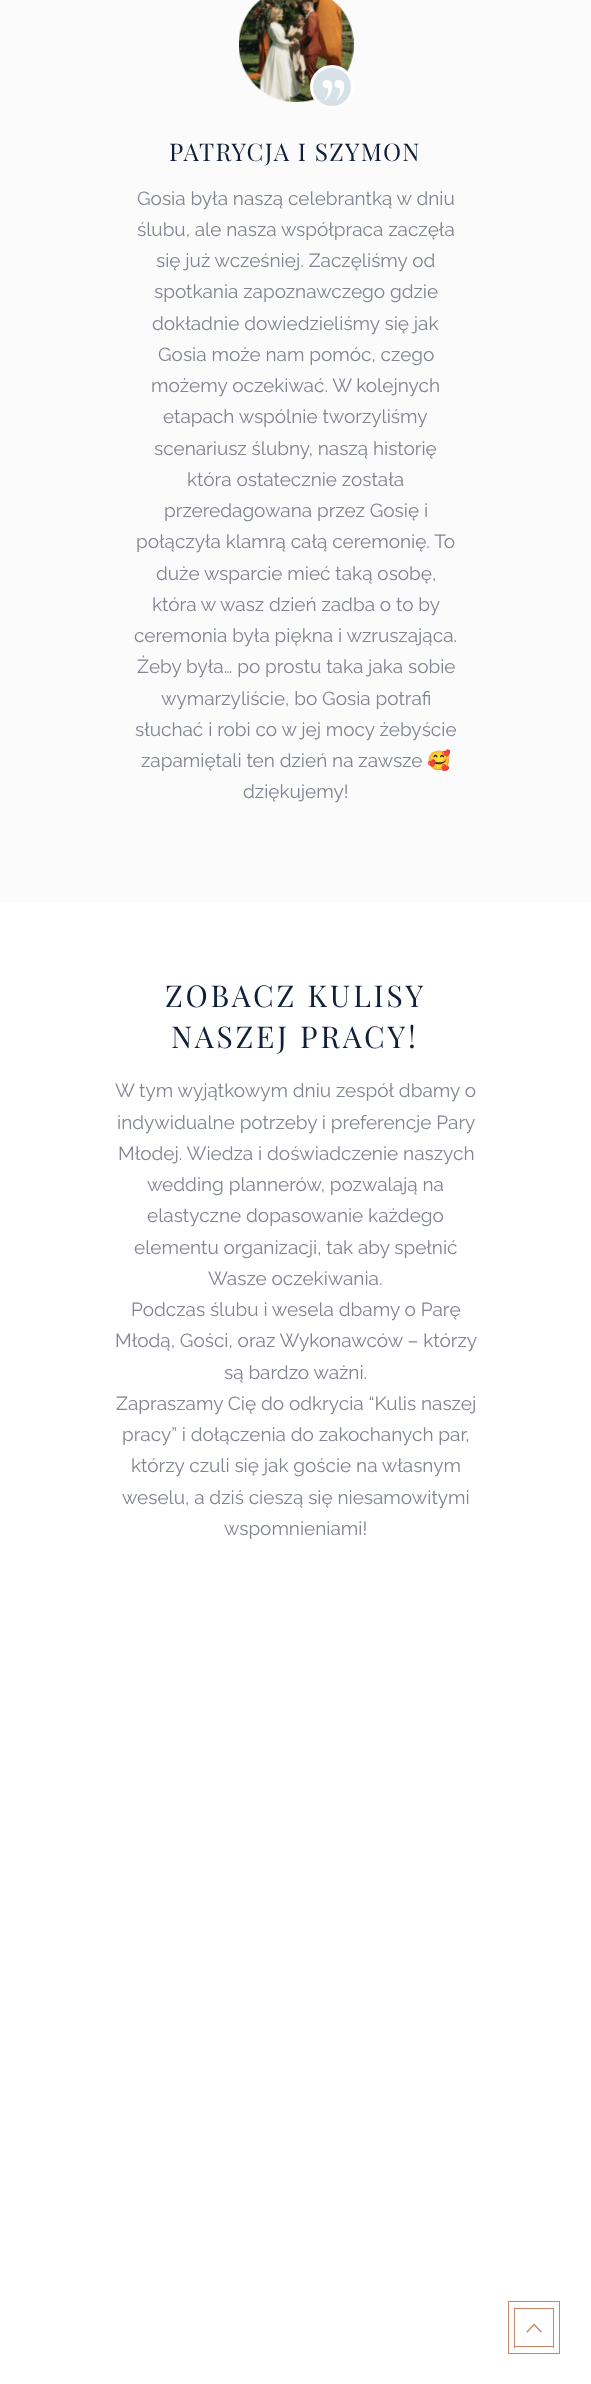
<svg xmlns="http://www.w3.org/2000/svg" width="591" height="2384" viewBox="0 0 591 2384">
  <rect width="100%" height="100%" fill="rgb(255,255,255)"/>
  <rect x="0" y="0" width="591" height="903" fill="rgb(251,251,251)"/>
  <image x="239" y="0" width="115" height="102" href="pic1.png"/>
  <circle cx="332" cy="87" r="20.5" fill="rgb(214,226,231)" stroke="rgb(255,255,255)" stroke-width="3"/>
  <text x="321" y="123" font-family="Cormorant" font-size="69" font-weight="bold" fill="rgb(255,255,255)">”</text>
  <text x="169" y="161" font-family="Playfair Display" font-size="24.4" letter-spacing="1.3" fill="rgb(18,31,56)">PATRYCJA I SZYMON</text>
  <g font-family="Raleway" font-size="19" fill="rgb(129,132,145)">
    <text>
      <tspan x="137" y="205">Gosia była naszą celebrantką w dniu</tspan>
      <tspan x="137" y="236">ślubu, ale nasza współpraca zaczęła</tspan>
    </text>
    <text x="156" y="267">się już wcześniej. Zaczęliśmy od</text>
    <text x="154" y="298">spotkania zapoznawczego gdzie</text>
    <text x="152" y="330">dokładnie dowiedzieliśmy się jak</text>
    <text x="158" y="361">Gosia może nam pomóc, czego</text>
    <text x="151" y="392">możemy oczekiwać. W kolejnych</text>
    <text x="163" y="423">etapach wspólnie tworzyliśmy</text>
    <text x="154" y="455">scenariusz ślubny, naszą historię</text>
    <text x="187" y="486">która ostatecznie została</text>
    <text x="164" y="517">przeredagowana przez Gosię i</text>
    <text x="136" y="548">połączyła klamrą całą ceremonię. To</text>
    <text x="156" y="580">duże wsparcie mieć taką osobę,</text>
    <text x="152" y="611">która w wasz dzień zadba o to by</text>
    <text x="134" y="642">ceremonia była piękna i wzruszająca.</text>
    <text x="137" y="673">Żeby była… po prostu taka jaka sobie</text>
    <text x="161" y="705">wymarzyliście, bo Gosia potrafi</text>
    <text x="135" y="736">słuchać i robi co w jej mocy żebyście</text>
    <text x="141" y="767">zapamiętali ten dzień na zawsze</text>
  </g>
  <text x="427" y="767" font-family="Noto Color Emoji" font-size="19" fill="rgb(129,132,145)">🥰</text>
  <text x="243" y="798" font-family="Raleway" font-size="19" fill="rgb(129,132,145)">dziękujemy!</text>
  <g font-family="Playfair Display" font-size="30" letter-spacing="2.8" fill="rgb(18,31,56)">
    <text x="165" y="1007">ZOBACZ KULISY</text>
    <text x="171" y="1048">NASZEJ PRACY!</text>
  </g>
  <g font-family="Raleway" font-size="19" fill="rgb(129,132,145)">
    <text x="115" y="1097">W tym wyjątkowym dniu zespół dbamy o</text>
    <text x="117" y="1129">indywidualne potrzeby i preferencje Pary</text>
    <text x="118" y="1160">Młodej. Wiedza i doświadczenie naszych</text>
    <text>
      <tspan x="147" y="1191">wedding plannerów, pozwalają na</tspan>
      <tspan x="147" y="1222">elastyczne dopasowanie każdego</tspan>
    </text>
    <text x="134" y="1254">elementu organizacji, tak aby spełnić</text>
    <text x="208" y="1285">Wasze oczekiwania.</text>
    <text x="131" y="1316">Podczas ślubu i wesela dbamy o Parę</text>
    <text x="115" y="1347">Młodą, Gości, oraz Wykonawców – którzy</text>
    <text x="224" y="1379">są bardzo ważni.</text>
    <text x="116" y="1410">Zapraszamy Cię do odkrycia “Kulis naszej</text>
    <text x="122" y="1441">pracy” i dołączenia do zakochanych par,</text>
    <text x="131" y="1472">którzy czuli się jak goście na własnym</text>
    <text x="122" y="1504">weselu, a dziś cieszą się niesamowitymi</text>
    <text x="224" y="1535">wspomnieniami!</text>
  </g>
  <rect x="508.5" y="2301.5" width="51" height="52" fill="none" stroke="rgb(199,134,101)"/>
  <rect x="514" y="2308" width="40" height="1" fill="rgb(199,134,101)"/>
  <rect x="553" y="2308" width="1" height="40" fill="rgb(199,134,101)"/>
  <rect x="514" y="2346" width="40" height="1" fill="rgb(199,134,101)"/>
  <rect x="514" y="2308" width="1" height="40" fill="rgb(199,134,101)"/>
  <image x="526" y="2323" width="16" height="10" href="pic2.png"/>
</svg>
